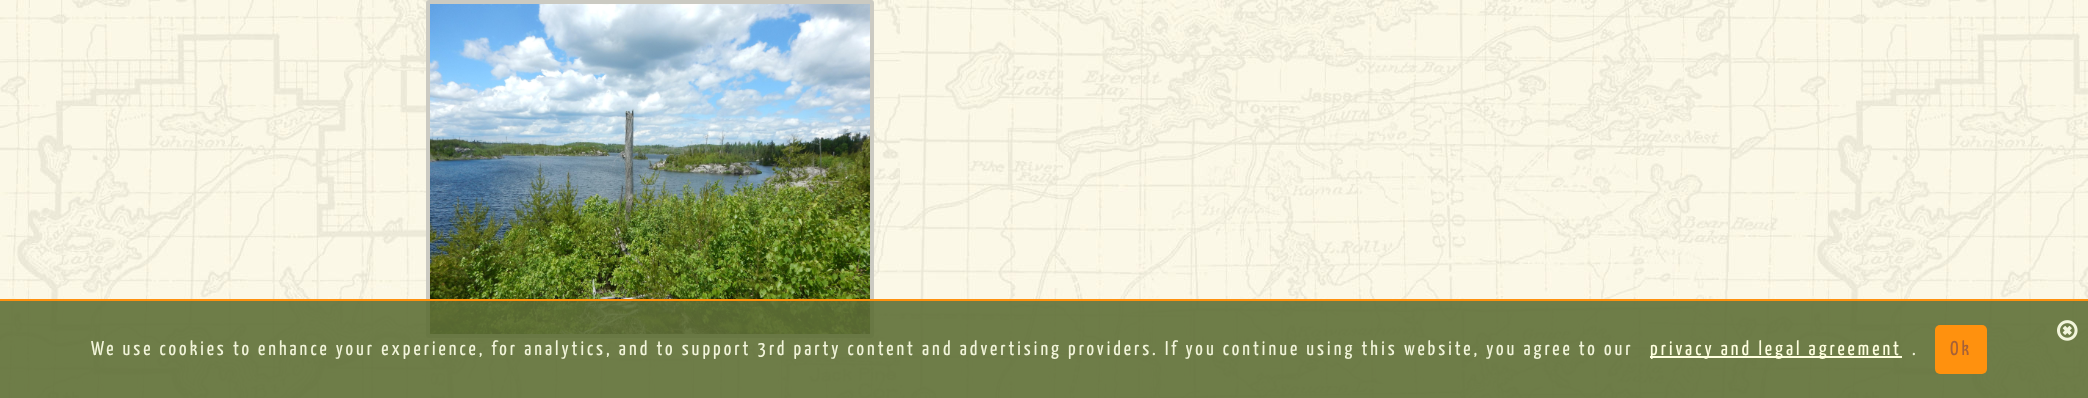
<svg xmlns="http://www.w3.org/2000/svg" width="2088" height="398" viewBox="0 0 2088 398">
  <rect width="100%" height="100%" fill="rgb(255,255,255)"/>
  <image x="0" y="0" width="2088" height="398" href="pic1.png"/>
  <rect x="428" y="2" width="444" height="334" rx="1" fill="none" stroke="rgb(203,202,194)" stroke-width="4"/>
  <image x="430" y="4" width="440" height="330" href="pic2.png"/>
  <rect x="0" y="301" width="2088" height="97" fill="rgba(94,111,54,0.9)"/>
  <rect x="0" y="299" width="2088" height="2" fill="rgb(255,145,14)"/>
  <image x="2057" y="320" width="21" height="21" href="pic3.png"/>
  <text x="91" y="355" font-family="Yanone Kaffeesatz" font-size="20" letter-spacing="3" fill="rgb(242,245,219)">We use cookies to enhance your experience, for analytics, and to support 3rd party content and advertising providers. If you continue using this website, you agree to our</text>
  <rect x="1650" y="356" width="252" height="2" fill="rgb(255,255,224)"/>
  <text x="1650" y="355" font-family="Yanone Kaffeesatz" font-size="20" letter-spacing="3" fill="rgb(255,255,224)">privacy and legal agreement</text>
  <text x="1912" y="355" font-family="Yanone Kaffeesatz" font-size="20" letter-spacing="3" fill="rgb(242,245,219)">.</text>
  <rect x="1935" y="325" width="52" height="49" rx="5" fill="rgb(255,145,14)"/>
  <text x="1950" y="355" font-family="Yanone Kaffeesatz" font-size="20" letter-spacing="3" fill="rgb(166,97,56)">Ok</text>
</svg>
